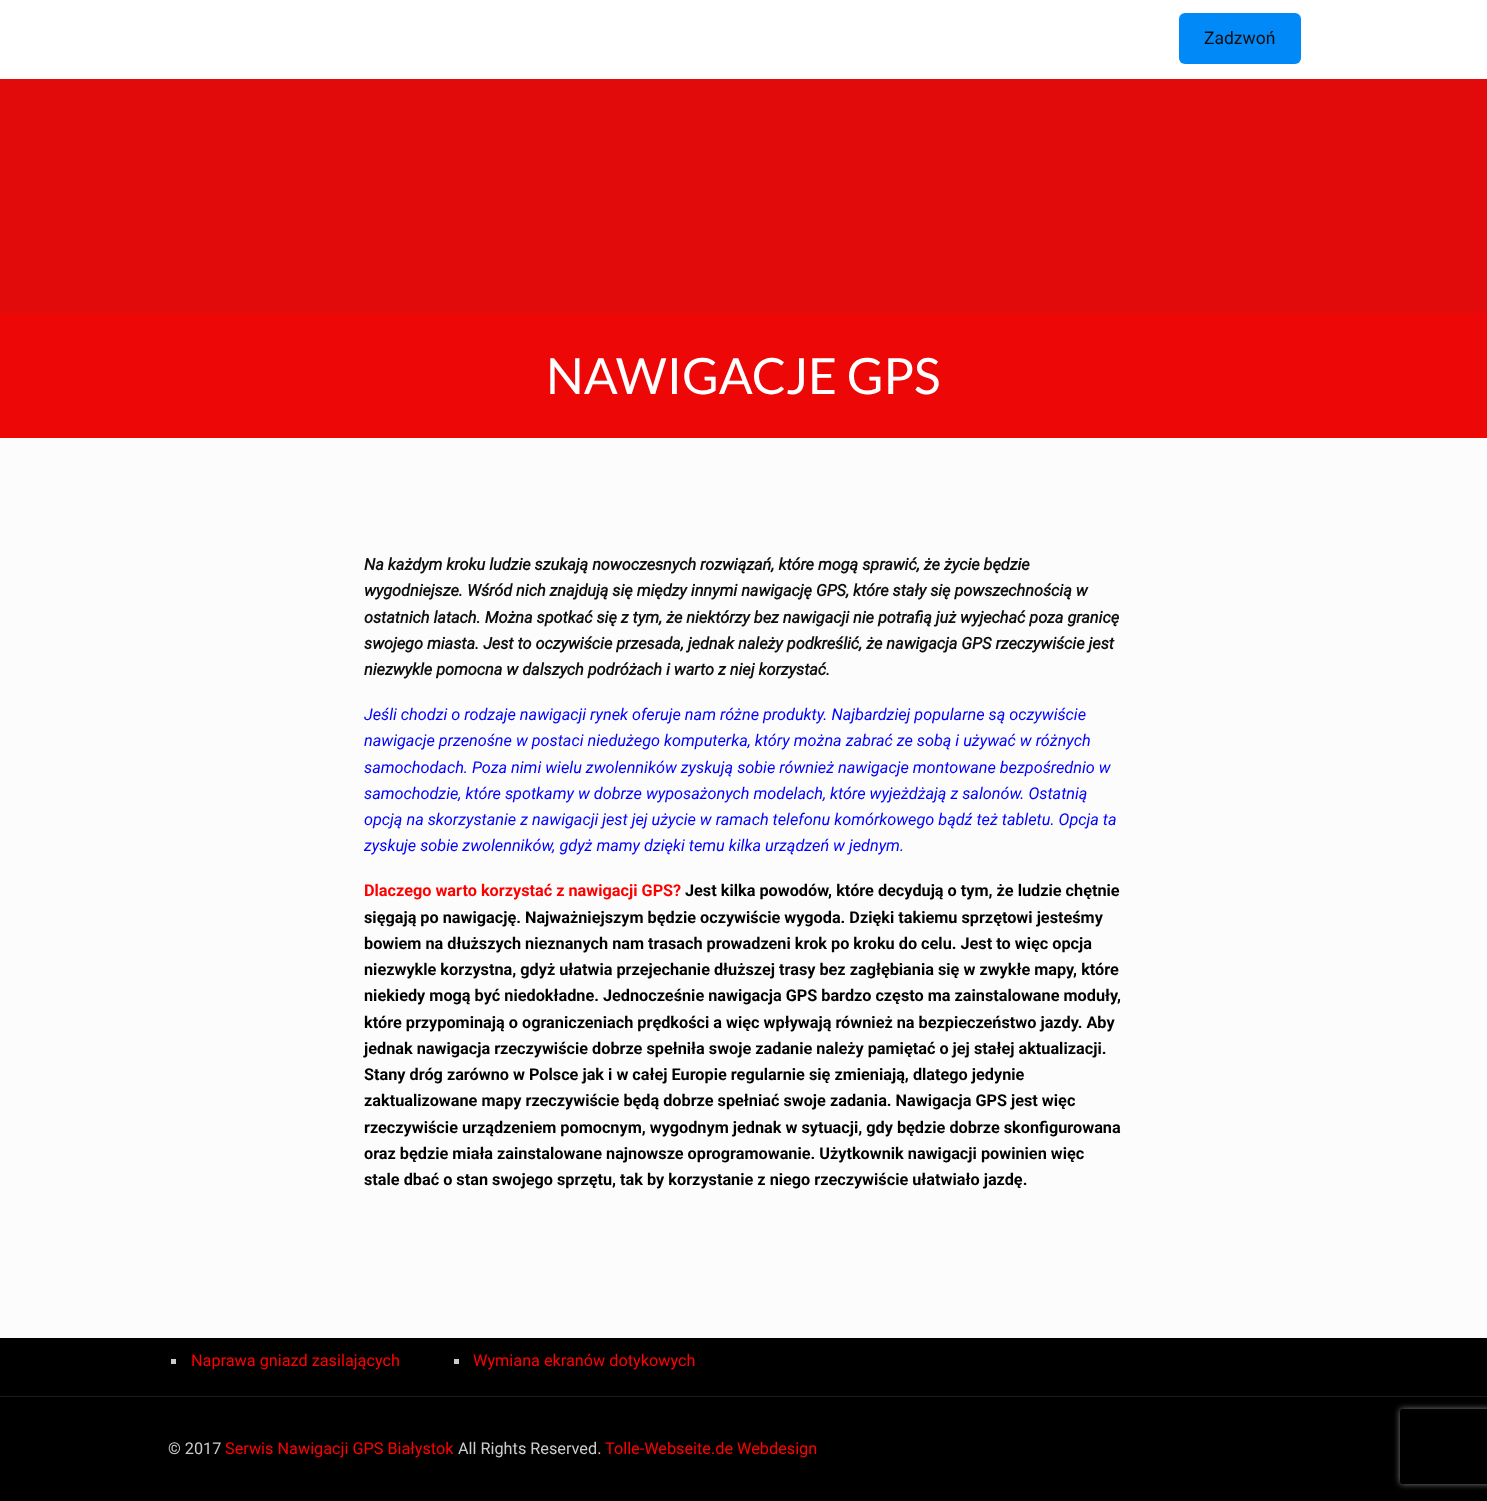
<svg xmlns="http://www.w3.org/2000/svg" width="1487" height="1501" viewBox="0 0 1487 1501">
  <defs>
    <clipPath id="clip1"><path d="M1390 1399H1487V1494H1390ZM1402.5 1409H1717.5C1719 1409 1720 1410 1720 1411.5V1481.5C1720 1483 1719 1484 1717.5 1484H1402.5C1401 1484 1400 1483 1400 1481.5V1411.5C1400 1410 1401 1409 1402.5 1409Z" clip-rule="evenodd"/></clipPath>
  </defs>
  <rect width="100%" height="100%" fill="rgb(0,0,0)"/>
  <rect x="0" y="79" width="1487" height="234" fill="rgb(225,11,11)"/>
  <rect x="0" y="0" width="1487" height="79" fill="rgb(255,255,255)"/>
  <rect x="1179" y="13" width="122" height="51" rx="6" fill="rgb(0,137,247)"/>
  <text x="1204" y="44" font-family="Roboto" font-size="17.5" fill="rgb(14,14,14)">Zadzwoń</text>
  <rect x="0" y="313" width="1487" height="125" fill="rgb(237,7,7)"/>
  <text x="546" y="394" font-family="Lato" font-size="50" fill="rgb(255,255,255)">NAWIGACJE GPS</text>
  <rect x="0" y="438" width="1487" height="900" fill="rgb(252,252,252)"/>
  <g font-family="Roboto" font-size="16.25" font-weight="bold" font-style="italic" fill="rgb(14,14,14)">
    <text>
      <tspan x="364" y="570">Na każdym kroku ludzie szukają nowoczesnych rozwiązań, które mogą sprawić, że życie będzie</tspan>
      <tspan x="364" y="596">wygodniejsze. Wśród nich znajdują się między innymi nawigację GPS, które stały się powszechnością w</tspan>
      <tspan x="364" y="623">ostatnich latach. Można spotkać się z tym, że niektórzy bez nawigacji nie potrafią już wyjechać poza granicę</tspan>
      <tspan x="364" y="649">swojego miasta. Jest to oczywiście przesada, jednak należy podkreślić, że nawigacja GPS rzeczywiście jest</tspan>
      <tspan x="364" y="675">niezwykle pomocna w dalszych podróżach i warto z niej korzystać.</tspan>
    </text>
  </g>
  <g font-family="Roboto" font-size="16.25" font-style="italic" fill="rgb(0,0,255)">
    <text>
      <tspan x="364" y="720">Jeśli chodzi o rodzaje nawigacji rynek oferuje nam różne produkty. Najbardziej popularne są oczywiście</tspan>
      <tspan x="364" y="746">nawigacje przenośne w postaci niedużego komputerka, który można zabrać ze sobą i używać w różnych</tspan>
      <tspan x="364" y="773">samochodach. Poza nimi wielu zwolenników zyskują sobie również nawigacje montowane bezpośrednio w</tspan>
      <tspan x="364" y="799">samochodzie, które spotkamy w dobrze wyposażonych modelach, które wyjeżdżają z salonów. Ostatnią</tspan>
      <tspan x="364" y="825">opcją na skorzystanie z nawigacji jest jej użycie w ramach telefonu komórkowego bądź też tabletu. Opcja ta</tspan>
      <tspan x="364" y="851">zyskuje sobie zwolenników, gdyż mamy dzięki temu kilka urządzeń w jednym.</tspan>
    </text>
  </g>
  <text x="364" y="896" font-family="Roboto" font-size="16.25" font-weight="bold" fill="rgb(255,0,0)">Dlaczego warto korzystać z nawigacji GPS?</text>
  <g font-family="Roboto" font-size="16.25" font-weight="bold" fill="rgb(0,0,0)">
    <text x="685" y="896">Jest kilka powodów, które decydują o tym, że ludzie chętnie</text>
    <text>
      <tspan x="364" y="923">sięgają po nawigację. Najważniejszym będzie oczywiście wygoda. Dzięki takiemu sprzętowi jesteśmy</tspan>
      <tspan x="364" y="949">bowiem na dłuższych nieznanych nam trasach prowadzeni krok po kroku do celu. Jest to więc opcja</tspan>
      <tspan x="364" y="975">niezwykle korzystna, gdyż ułatwia przejechanie dłuższej trasy bez zagłębiania się w zwykłe mapy, które</tspan>
      <tspan x="364" y="1001">niekiedy mogą być niedokładne. Jednocześnie nawigacja GPS bardzo często ma zainstalowane moduły,</tspan>
      <tspan x="364" y="1028">które przypominają o ograniczeniach prędkości a więc wpływają również na bezpieczeństwo jazdy. Aby</tspan>
      <tspan x="364" y="1054">jednak nawigacja rzeczywiście dobrze spełniła swoje zadanie należy pamiętać o jej stałej aktualizacji.</tspan>
      <tspan x="364" y="1080">Stany dróg zarówno w Polsce jak i w całej Europie regularnie się zmieniają, dlatego jedynie</tspan>
      <tspan x="364" y="1106">zaktualizowane mapy rzeczywiście będą dobrze spełniać swoje zadania. Nawigacja GPS jest więc</tspan>
      <tspan x="364" y="1133">rzeczywiście urządzeniem pomocnym, wygodnym jednak w sytuacji, gdy będzie dobrze skonfigurowana</tspan>
      <tspan x="364" y="1159">oraz będzie miała zainstalowane najnowsze oprogramowanie. Użytkownik nawigacji powinien więc</tspan>
      <tspan x="364" y="1185">stale dbać o stan swojego sprzętu, tak by korzystanie z niego rzeczywiście ułatwiało jazdę.</tspan>
    </text>
  </g>
  <rect x="171" y="1359" width="5" height="5" fill="rgb(204,204,204)"/>
  <text x="191" y="1366" font-family="Roboto" font-size="16.25" fill="rgb(255,0,0)">Naprawa gniazd zasilających</text>
  <rect x="454" y="1359" width="5" height="5" fill="rgb(204,204,204)"/>
  <text x="473" y="1366" font-family="Roboto" font-size="16.25" fill="rgb(255,0,0)">Wymiana ekranów dotykowych</text>
  <rect x="0" y="1396" width="1487" height="1" fill="rgb(26,26,26)"/>
  <text x="168" y="1454" font-family="Roboto" font-size="16.25" fill="rgb(204,204,204)">© 2017</text>
  <text x="225" y="1454" font-family="Roboto" font-size="16.25" fill="rgb(255,0,0)">Serwis Nawigacji GPS Białystok</text>
  <text x="458" y="1454" font-family="Roboto" font-size="16.25" fill="rgb(204,204,204)">All Rights Reserved.</text>
  <text x="605" y="1454" font-family="Roboto" font-size="16.25" fill="rgb(255,0,0)">Tolle-Webseite.de Webdesign</text>
  <g clip-path="url(#clip1)">
    <rect x="1400" y="1409" width="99" height="75" rx="2.5" fill="rgb(128,128,128)" filter="blur(3px)"/>
  </g>
</svg>
